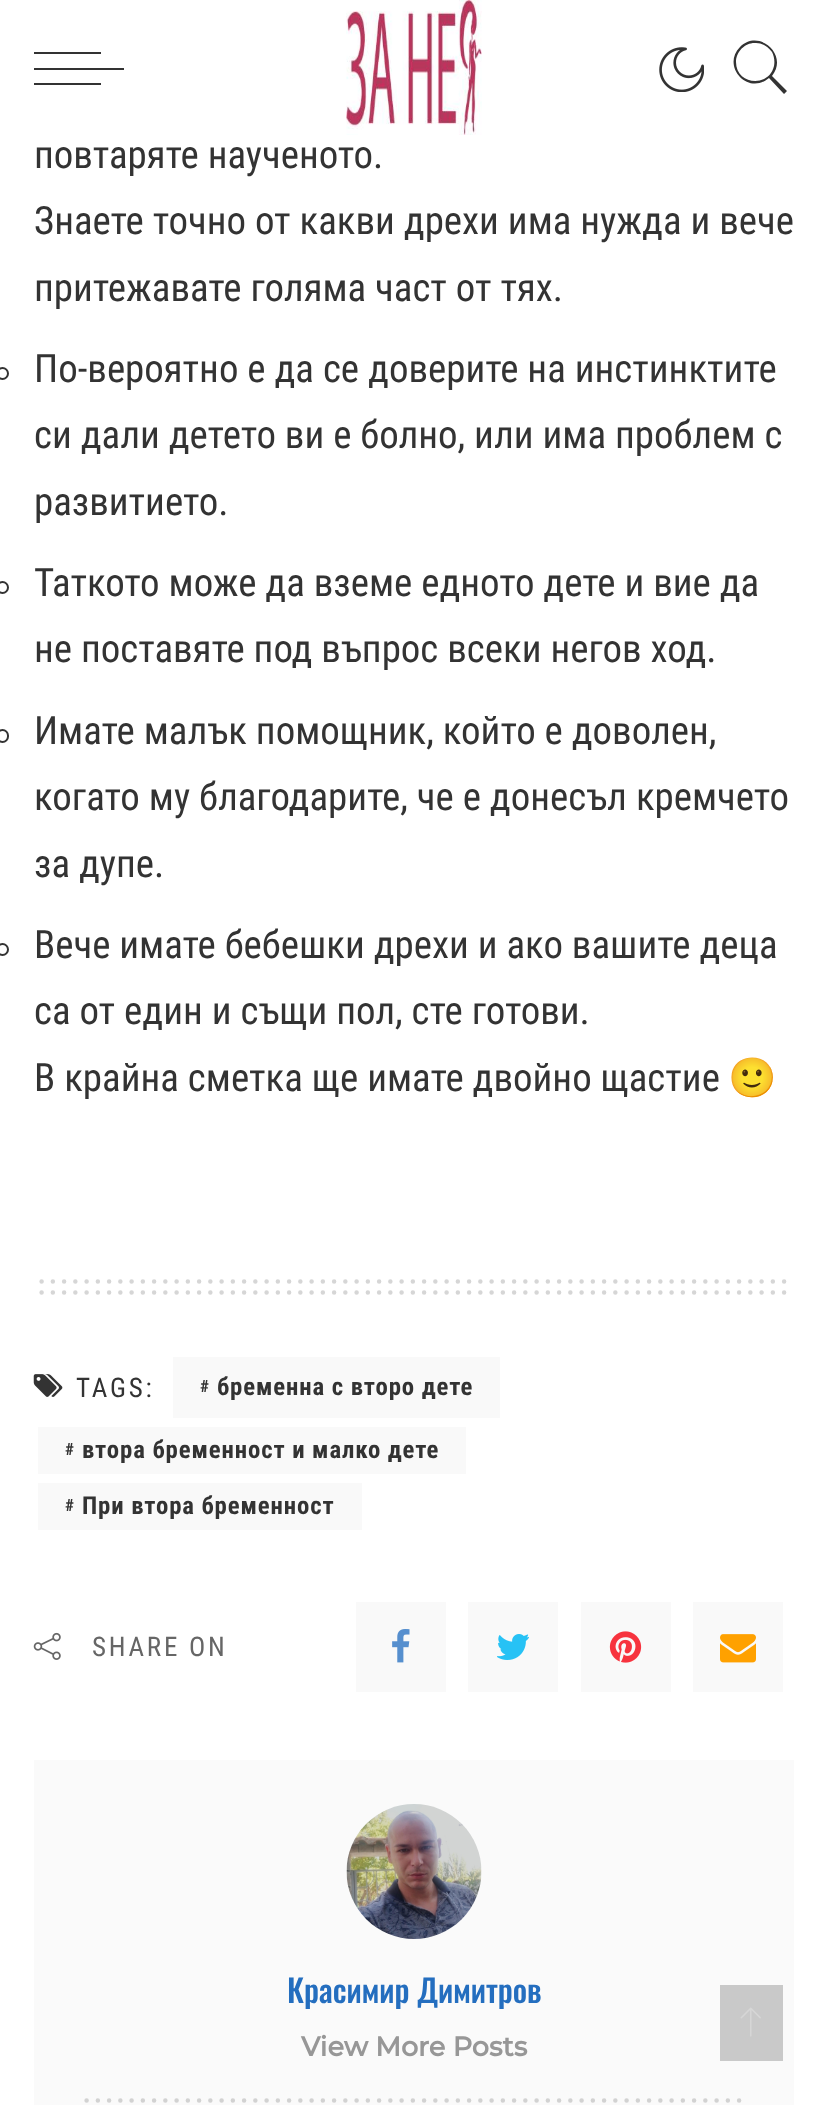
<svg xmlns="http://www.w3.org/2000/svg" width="827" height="2105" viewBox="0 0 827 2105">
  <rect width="100%" height="100%" fill="rgb(255,255,255)"/>
  <rect x="34" y="68" width="90" height="2" fill="rgb(51,51,51)"/>
  <rect x="34" y="52" width="67" height="2" fill="rgb(51,51,51)"/>
  <rect x="34" y="83" width="67" height="2" fill="rgb(51,51,51)"/>
  <image x="346" y="0" width="136" height="135" href="pic1.png"/>
  <image x="659" y="47" width="45" height="45" href="pic2.png"/>
  <path d="M787 91L772 76C789 55 759 28 740 47C721 66 748 96 769 78L784 94ZM736 62C736 51 746 42 756 43C763 43 768 47 772 52C774 56 775 61 774 66C769 88 736 85 736 62Z" fill="rgb(51,51,51)"/>
  <g font-family="Roboto Condensed" font-size="38.9" fill="rgb(51,51,51)">
    <text>
      <tspan x="34" y="168">повтаряте наученото.</tspan>
      <tspan x="34" y="234">Знаете точно от какви дрехи има нужда и вече</tspan>
      <tspan x="34" y="301">притежавате голяма част от тях.</tspan>
    </text>
  </g>
  <circle cx="2.5" cy="373.5" r="5.5" fill="none" stroke="rgb(51,51,51)" stroke-width="2"/>
  <g font-family="Roboto Condensed" font-size="38.9" fill="rgb(51,51,51)">
    <text>
      <tspan x="34" y="382">По-вероятно е да се доверите на инстинктите</tspan>
      <tspan x="34" y="448">си дали детето ви е болно, или има проблем с</tspan>
      <tspan x="34" y="515">развитието.</tspan>
    </text>
  </g>
  <circle cx="2.5" cy="587.5" r="5.5" fill="none" stroke="rgb(51,51,51)" stroke-width="2"/>
  <g font-family="Roboto Condensed" font-size="38.9" fill="rgb(51,51,51)">
    <text>
      <tspan x="34" y="596">Таткото може да вземе едното дете и вие да</tspan>
      <tspan x="34" y="662">не поставяте под въпрос всеки негов ход.</tspan>
    </text>
  </g>
  <rect x="-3" y="730" width="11" height="12" rx="5.5" fill="none" stroke="rgb(51,51,51)" stroke-width="2"/>
  <g font-family="Roboto Condensed" font-size="38.9" fill="rgb(51,51,51)">
    <text>
      <tspan x="34" y="744">Имате малък помощник, който е доволен,</tspan>
      <tspan x="34" y="810">когато му благодарите, че е донесъл кремчето</tspan>
      <tspan x="34" y="877">за дупе.</tspan>
    </text>
  </g>
  <circle cx="2.5" cy="949.5" r="5.5" fill="none" stroke="rgb(51,51,51)" stroke-width="2"/>
  <g font-family="Roboto Condensed" font-size="38.9" fill="rgb(51,51,51)">
    <text>
      <tspan x="34" y="958">Вече имате бебешки дрехи и ако вашите деца</tspan>
      <tspan x="34" y="1024">са от един и същи пол, сте готови.</tspan>
      <tspan x="34" y="1091">В крайна сметка ще имате двойно щастие</tspan>
    </text>
  </g>
  <text x="728" y="1091" font-family="Noto Color Emoji" font-size="38.9" fill="rgb(51,51,51)">🙂</text>
  <path d="M41.6 1281.4H784.6" fill="none" stroke="rgb(214,214,214)" stroke-width="4.5" stroke-linecap="round" stroke-dasharray="0 11.25"/>
  <path d="M41.6 1292.6H784.6" fill="none" stroke="rgb(214,214,214)" stroke-width="4.5" stroke-linecap="round" stroke-dasharray="0 11.25"/>
  <image x="33" y="1374" width="30" height="23" href="pic3.png"/>
  <text x="76" y="1397" font-family="Roboto Condensed" font-size="27" letter-spacing="2.75" fill="rgb(51,51,51)">TAGS:</text>
  <rect x="173" y="1357" width="327" height="61" fill="rgb(249,249,249)"/>
  <text x="200" y="1392" font-family="Roboto Condensed" font-size="17" font-weight="bold" letter-spacing="0.9" fill="rgb(51,51,51)">#</text>
  <text x="217" y="1395" font-family="Roboto Condensed" font-size="24.75" font-weight="bold" letter-spacing="0.9" fill="rgb(51,51,51)">бременна с второ дете</text>
  <rect x="38" y="1427" width="428" height="47" fill="rgb(249,249,249)"/>
  <text x="65" y="1455" font-family="Roboto Condensed" font-size="17" font-weight="bold" letter-spacing="0.9" fill="rgb(51,51,51)">#</text>
  <text x="82" y="1458" font-family="Roboto Condensed" font-size="24.75" font-weight="bold" letter-spacing="0.9" fill="rgb(51,51,51)">втора бременност и малко дете</text>
  <rect x="38" y="1483" width="324" height="47" fill="rgb(249,249,249)"/>
  <text x="65" y="1511" font-family="Roboto Condensed" font-size="17" font-weight="bold" letter-spacing="0.9" fill="rgb(51,51,51)">#</text>
  <text x="82" y="1514" font-family="Roboto Condensed" font-size="24.75" font-weight="bold" letter-spacing="0.9" fill="rgb(51,51,51)">При втора бременност</text>
  <image x="33" y="1632" width="28" height="28" href="pic4.png"/>
  <text x="92" y="1656" font-family="Roboto Condensed" font-size="27" letter-spacing="2.75" fill="rgb(102,102,102)">SHARE ON</text>
  <rect x="356" y="1602" width="90" height="90" fill="rgb(249,249,249)"/>
  <image x="392" y="1629" width="18" height="34" href="pic5.png"/>
  <rect x="468" y="1602" width="90" height="90" fill="rgb(249,249,249)"/>
  <image x="497" y="1634" width="32" height="26" href="pic6.png"/>
  <rect x="581" y="1602" width="90" height="90" fill="rgb(249,249,249)"/>
  <image x="609" y="1631" width="33" height="32" href="pic7.png"/>
  <rect x="693" y="1602" width="90" height="90" fill="rgb(249,249,249)"/>
  <image x="720" y="1634" width="36" height="29" href="pic8.png"/>
  <rect x="34" y="1760" width="760" height="345" fill="rgb(250,250,250)"/>
  <image x="346" y="1804" width="136" height="135" href="pic9.png"/>
  <text x="287" y="2003" font-family="Oswald" font-size="31.5" font-weight="500" fill="rgb(36,110,191)">Красимир Димитров</text>
  <text x="301" y="2056" font-family="Montserrat" font-size="27" font-weight="bold" fill="rgb(151,151,151)">View More Posts</text>
  <path d="M86.6 2100.4H739.6" fill="none" stroke="rgb(210,210,210)" stroke-width="4.5" stroke-linecap="round" stroke-dasharray="0 11.25"/>
  <rect x="720" y="1985" width="63" height="76" fill="rgb(201,201,201)"/>
  <image x="740" y="2007" width="21" height="30" href="pic10.png"/>
</svg>
